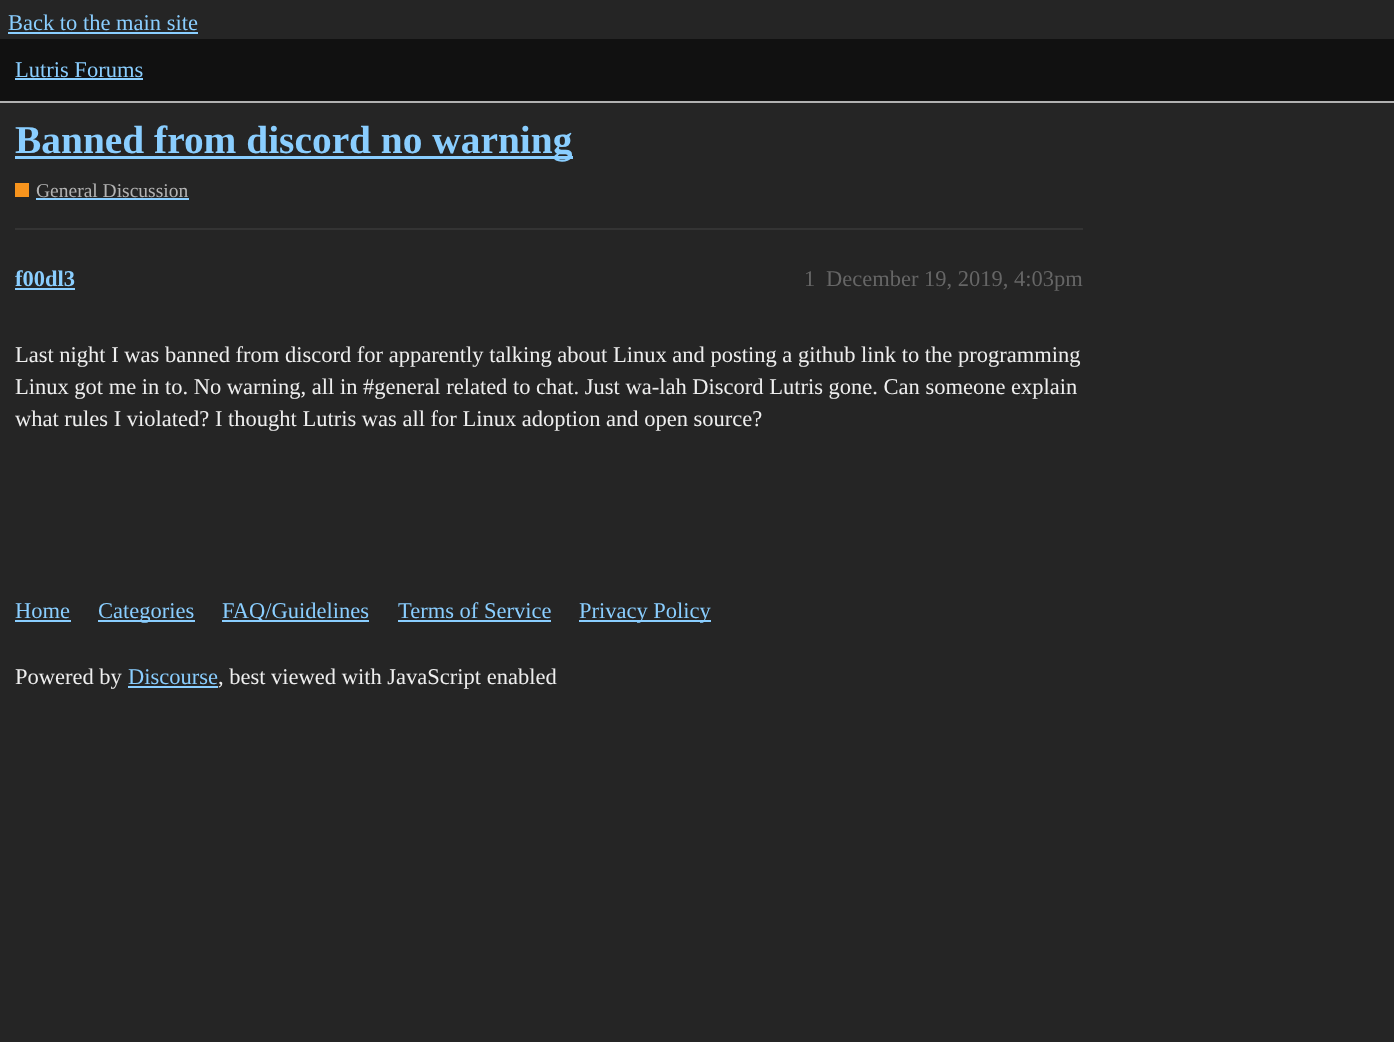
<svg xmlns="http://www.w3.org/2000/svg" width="1394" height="1042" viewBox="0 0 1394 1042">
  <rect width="100%" height="100%" fill="rgb(37,37,37)"/>
  <text x="8" y="30" font-family="Liberation Serif" font-size="22.5" fill="rgb(138,206,255)">Back to the main site</text>
  <rect x="8" y="32" width="190" height="2" fill="rgb(138,206,255)"/>
  <rect x="0" y="39" width="1394" height="62" fill="rgb(17,17,17)"/>
  <rect x="0" y="101" width="1394" height="2" fill="rgb(177,177,177)"/>
  <text x="15" y="77" font-family="Liberation Serif" font-size="22.5" fill="rgb(138,206,255)">Lutris Forums</text>
  <rect x="15" y="78" width="128" height="2" fill="rgb(138,206,255)"/>
  <rect x="15" y="156" width="558" height="3" fill="rgb(138,206,255)"/>
  <text x="15" y="153" font-family="Liberation Serif" font-size="39.4" font-weight="bold" fill="rgb(138,206,255)">Banned from discord no warning</text>
  <rect x="15" y="183" width="14" height="14" fill="rgb(247,148,29)"/>
  <text x="36" y="197" font-family="Liberation Serif" font-size="19.5" fill="rgb(179,179,179)">General Discussion</text>
  <rect x="36" y="198" width="153" height="2" fill="rgb(138,206,255)"/>
  <rect x="15" y="228" width="1068" height="2" fill="rgb(52,52,52)"/>
  <text x="15" y="286" font-family="Liberation Serif" font-size="22.5" font-weight="bold" fill="rgb(138,206,255)">f00dl3</text>
  <rect x="15" y="288" width="60" height="2" fill="rgb(138,206,255)"/>
  <g font-family="Liberation Serif" font-size="22.5" fill="rgb(102,102,102)">
    <text x="804" y="286">1</text>
    <text x="826" y="286">December 19, 2019, 4:03pm</text>
  </g>
  <g font-family="Liberation Serif" font-size="22.5" fill="rgb(238,238,238)">
    <text>
      <tspan x="15" y="362">Last night I was banned from discord for apparently talking about Linux and posting a github link to the programming</tspan>
      <tspan x="15" y="394">Linux got me in to. No warning, all in #general related to chat. Just wa-lah Discord Lutris gone. Can someone explain</tspan>
      <tspan x="15" y="426">what rules I violated? I thought Lutris was all for Linux adoption and open source?</tspan>
    </text>
  </g>
  <text x="15" y="618" font-family="Liberation Serif" font-size="22.5" fill="rgb(138,206,255)">Home</text>
  <rect x="15" y="620" width="56" height="2" fill="rgb(138,206,255)"/>
  <rect x="98" y="620" width="97" height="2" fill="rgb(138,206,255)"/>
  <text x="98" y="618" font-family="Liberation Serif" font-size="22.5" fill="rgb(138,206,255)">Categories</text>
  <rect x="222" y="620" width="147" height="2" fill="rgb(138,206,255)"/>
  <g font-family="Liberation Serif" font-size="22.5" fill="rgb(138,206,255)">
    <text x="222" y="618">FAQ/Guidelines</text>
    <text x="398" y="618">Terms of Service</text>
  </g>
  <rect x="398" y="620" width="153" height="2" fill="rgb(138,206,255)"/>
  <rect x="579" y="620" width="132" height="2" fill="rgb(138,206,255)"/>
  <text x="579" y="618" font-family="Liberation Serif" font-size="22.5" fill="rgb(138,206,255)">Privacy Policy</text>
  <text x="15" y="684" font-family="Liberation Serif" font-size="22.5" fill="rgb(238,238,238)">Powered by</text>
  <text x="128" y="684" font-family="Liberation Serif" font-size="22.5" fill="rgb(138,206,255)">Discourse</text>
  <rect x="128" y="686" width="90" height="2" fill="rgb(138,206,255)"/>
  <text x="218" y="684" font-family="Liberation Serif" font-size="22.5" fill="rgb(238,238,238)">, best viewed with JavaScript enabled</text>
</svg>
